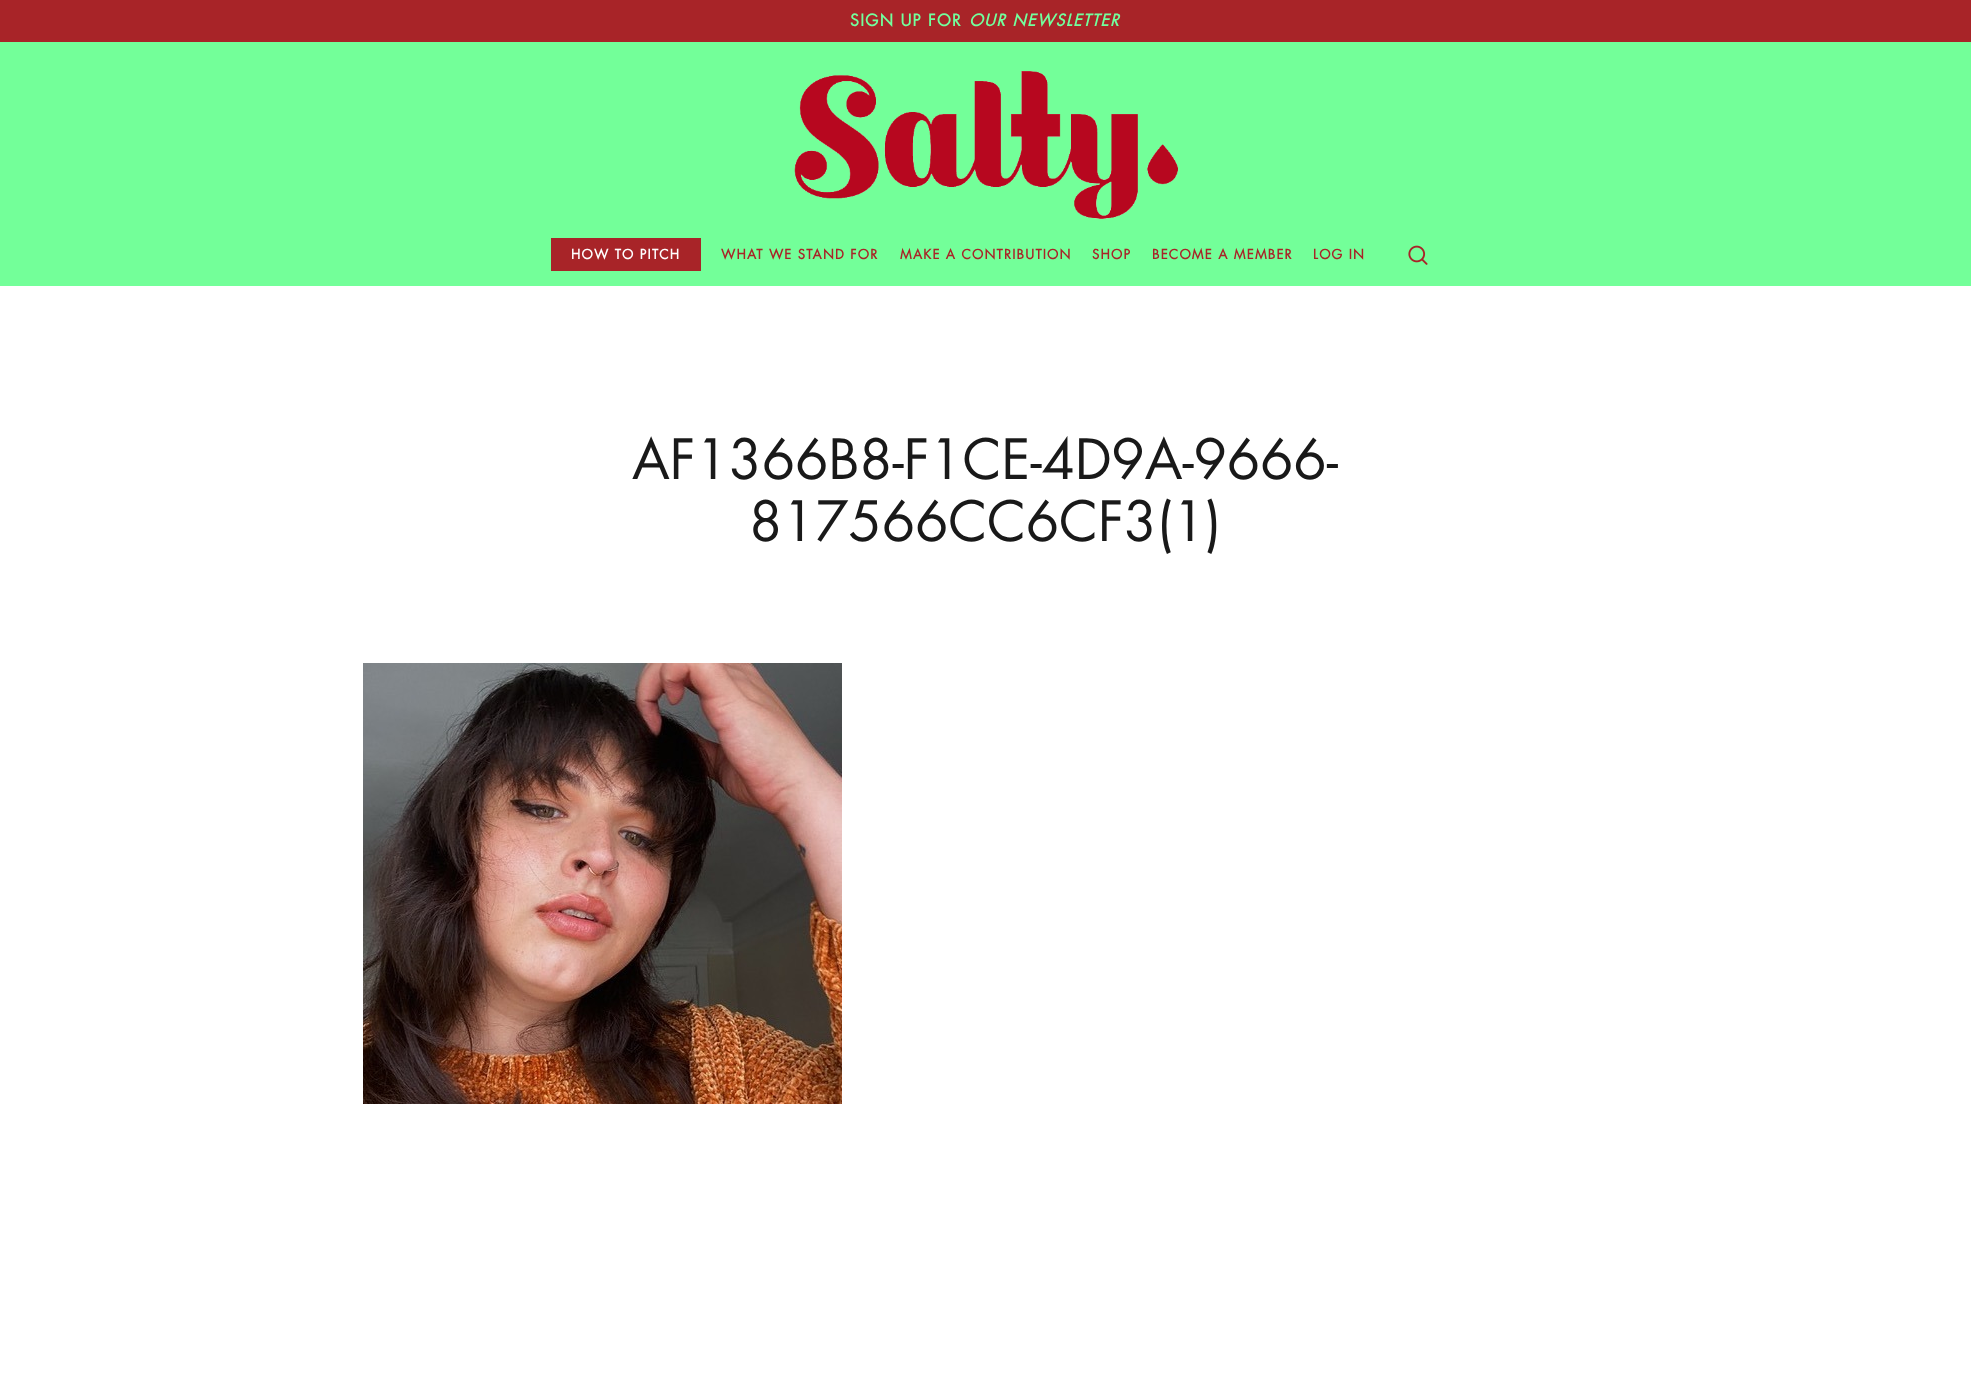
<svg xmlns="http://www.w3.org/2000/svg" width="1971" height="1395" viewBox="0 0 1971 1395">
  <rect width="100%" height="100%" fill="rgb(255,255,255)"/>
  <rect x="0" y="42" width="1971" height="244" fill="rgb(115,255,153)"/>
  <rect x="0" y="0" width="1971" height="42" fill="rgb(168,36,40)"/>
  <text x="850" y="26" font-family="Futura" font-size="16" font-weight="bold" letter-spacing="1.25" fill="rgb(115,255,157)">SIGN UP FOR</text>
  <text x="969" y="26" font-family="Futura" font-size="16" font-weight="bold" font-style="italic" letter-spacing="1.25" fill="rgb(115,255,157)">OUR NEWSLETTER</text>
  <image x="794" y="71" width="384" height="148" href="pic1.png"/>
  <rect x="551" y="238" width="150" height="33" fill="rgb(168,36,40)"/>
  <text x="571" y="259" font-family="Futura" font-size="13" font-weight="bold" letter-spacing="1.25" fill="rgb(255,255,255)">HOW TO PITCH</text>
  <g font-family="Futura" font-size="13" font-weight="bold" letter-spacing="1.25" fill="rgb(168,36,40)">
    <text x="721" y="259">WHAT WE STAND FOR</text>
    <text x="900" y="259">MAKE A CONTRIBUTION</text>
    <text x="1092" y="259">SHOP</text>
    <text x="1152" y="259">BECOME A MEMBER</text>
    <text x="1313" y="259">LOG IN</text>
  </g>
  <image x="1408" y="245" width="20" height="20" href="pic2.png"/>
  <g font-family="Futura" font-size="54" fill="rgb(25,25,25)">
    <text x="632" y="479">AF1366B8-F1CE-4D9A-9666-</text>
    <text x="749" y="541">817566CC6CF3(1)</text>
  </g>
  <image x="363" y="663" width="479" height="441" href="pic3.png"/>
</svg>
